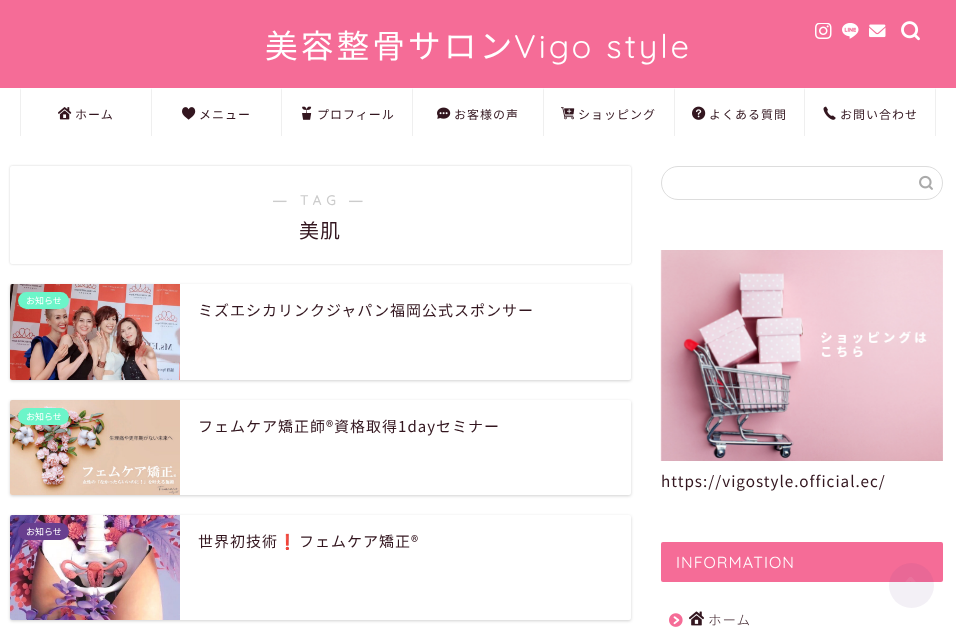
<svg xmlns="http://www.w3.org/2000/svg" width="956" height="630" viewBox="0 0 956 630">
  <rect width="100%" height="100%" fill="rgb(255,255,255)"/>
  <rect x="0" y="0" width="956" height="88" fill="rgb(245,108,151)"/>
  <text x="265" y="58" font-family="Noto Sans JP" font-size="32.75" letter-spacing="3" fill="rgb(255,255,255)">美容整骨サロン</text>
  <text x="514" y="58" font-family="Quicksand" font-size="32.75" font-weight="300" letter-spacing="3" fill="rgb(255,255,255)">Vigo style</text>
  <image x="815" y="23" width="17" height="16" href="pic1.png"/>
  <image x="842" y="23" width="17" height="16" href="pic2.png"/>
  <image x="869" y="24" width="17" height="14" href="pic3.png"/>
  <image x="901" y="21" width="19" height="20" href="pic4.png"/>
  <path d="M20 136V88L21 90V136Z" fill="rgb(239,239,239)"/>
  <image x="58" y="107" width="14" height="13" href="pic5.png"/>
  <text x="75" y="119" font-family="Noto Sans JP" font-size="12" letter-spacing="1" fill="rgb(51,22,31)">ホーム</text>
  <path d="M151 136V88L152 90V136Z" fill="rgb(239,239,239)"/>
  <image x="182" y="107" width="14" height="13" href="pic6.png"/>
  <text x="199" y="119" font-family="Noto Sans JP" font-size="12" letter-spacing="1" fill="rgb(51,22,31)">メニュー</text>
  <path d="M281 136V88L282 90V136Z" fill="rgb(239,239,239)"/>
  <image x="302" y="106" width="10" height="14" href="pic7.png"/>
  <text x="317" y="119" font-family="Noto Sans JP" font-size="12" letter-spacing="1" fill="rgb(51,22,31)">プロフィール</text>
  <path d="M412 136V88L413 90V136Z" fill="rgb(239,239,239)"/>
  <image x="437" y="107" width="14" height="12" href="pic8.png"/>
  <text x="454" y="119" font-family="Noto Sans JP" font-size="12" letter-spacing="1" fill="rgb(51,22,31)">お客様の声</text>
  <path d="M543 136V88L544 90V136Z" fill="rgb(239,239,239)"/>
  <image x="561" y="107" width="14" height="13" href="pic9.png"/>
  <text x="578" y="119" font-family="Noto Sans JP" font-size="12" letter-spacing="1" fill="rgb(51,22,31)">ショッピング</text>
  <path d="M674 136V88L675 90V136Z" fill="rgb(239,239,239)"/>
  <image x="692" y="106" width="14" height="14" href="pic10.png"/>
  <text x="709" y="119" font-family="Noto Sans JP" font-size="12" letter-spacing="1" fill="rgb(51,22,31)">よくある質問</text>
  <path d="M936 88V136H935V90Z" fill="rgb(239,239,239)"/>
  <path d="M804 136V88L805 90V136Z" fill="rgb(239,239,239)"/>
  <image x="823" y="106" width="13" height="14" href="pic11.png"/>
  <text x="840" y="119" font-family="Noto Sans JP" font-size="12" letter-spacing="1" fill="rgb(51,22,31)">お問い合わせ</text>
  <rect x="10" y="166" width="621" height="98" rx="2" fill="rgba(0,0,0,0.18)" filter="blur(1px)"/>
  <rect x="10" y="166" width="621" height="98" rx="2" fill="rgb(255,255,255)"/>
  <text x="273" y="205" font-family="Liberation Sans" font-size="13.5" font-weight="bold" letter-spacing="5" fill="rgb(204,204,204)">―</text>
  <text x="300" y="205" font-family="Quicksand" font-size="13.5" font-weight="bold" letter-spacing="5" fill="rgb(204,204,204)">TAG</text>
  <text x="349" y="205" font-family="Liberation Sans" font-size="13.5" font-weight="bold" letter-spacing="5" fill="rgb(204,204,204)">―</text>
  <text x="299" y="238" font-family="Noto Sans JP" font-size="20" letter-spacing="1" fill="rgb(51,22,31)">美肌</text>
  <rect x="10" y="285" width="621" height="96" rx="2" fill="rgba(0,0,0,0.18)" filter="blur(1.5px)"/>
  <rect x="10" y="284" width="621" height="96" rx="2" fill="rgb(255,255,255)"/>
  <image x="10" y="284" width="170" height="96" href="pic12.png"/>
  <rect x="18" y="292" width="51" height="17" rx="8.5" fill="rgb(108,245,201)"/>
  <text x="26" y="304" font-family="Noto Sans JP" font-size="9" fill="rgb(255,255,255)">お知らせ</text>
  <text x="198" y="316" font-family="Noto Sans JP" font-size="15" letter-spacing="1" fill="rgb(51,22,31)">ミズエシカリンクジャパン福岡公式スポンサー</text>
  <rect x="10" y="401" width="621" height="95" rx="2" fill="rgba(0,0,0,0.18)" filter="blur(1.5px)"/>
  <rect x="10" y="400" width="621" height="95" rx="2" fill="rgb(255,255,255)"/>
  <image x="10" y="400" width="170" height="95" href="pic13.png"/>
  <rect x="18" y="408" width="51" height="17" rx="8.5" fill="rgb(108,245,201)"/>
  <text x="26" y="420" font-family="Noto Sans JP" font-size="9" fill="rgb(255,255,255)">お知らせ</text>
  <text x="198" y="432" font-family="Noto Sans JP" font-size="15" letter-spacing="1" fill="rgb(51,22,31)">フェムケア矯正師®︎資格取得1dayセミナー</text>
  <rect x="10" y="516" width="621" height="105" rx="2" fill="rgba(0,0,0,0.18)" filter="blur(1.5px)"/>
  <rect x="10" y="515" width="621" height="105" rx="2" fill="rgb(255,255,255)"/>
  <image x="10" y="515" width="170" height="105" href="pic14.png"/>
  <rect x="18" y="523" width="51" height="17" rx="8.5" fill="rgb(104,63,143)"/>
  <text x="26" y="535" font-family="Noto Sans JP" font-size="9" fill="rgb(255,255,255)">お知らせ</text>
  <text x="198" y="547" font-family="Noto Sans JP" font-size="15" letter-spacing="1" fill="rgb(51,22,31)">世界初技術</text>
  <text x="278" y="547" font-family="Noto Color Emoji" font-size="15" letter-spacing="1" fill="rgb(51,22,31)">❗️</text>
  <text x="299" y="547" font-family="Noto Sans JP" font-size="15" letter-spacing="1" fill="rgb(51,22,31)">フェムケア矯正®︎</text>
  <rect x="661.5" y="166.5" width="281" height="33" rx="16.5" fill="none" stroke="rgb(221,221,221)"/>
  <image x="919" y="175" width="14" height="15" href="pic15.png"/>
  <image x="660" y="250" width="283" height="211" href="pic16.png"/>
  <text x="661" y="487" font-family="Noto Sans JP" font-size="15.25" letter-spacing="1" fill="rgb(51,22,31)">https://vigostyle.official.ec/</text>
  <rect x="661" y="542" width="282" height="40" rx="2" fill="rgb(245,108,151)"/>
  <text x="676" y="568" font-family="Quicksand" font-size="16" font-weight="300" letter-spacing="1" fill="rgb(255,255,255)">INFORMATION</text>
  <image x="669" y="613" width="14" height="14" href="pic17.png"/>
  <image x="689" y="611" width="15" height="15" href="pic18.png"/>
  <text x="708" y="625" font-family="Noto Sans JP" font-size="13.5" font-weight="300" letter-spacing="1" fill="rgb(51,22,31)">ホーム</text>
  <circle cx="911.5" cy="585.5" r="22.5" fill="rgba(104,63,143,0.08)"/>
  <image x="905" y="577" width="11" height="5" href="pic19.png"/>
</svg>
